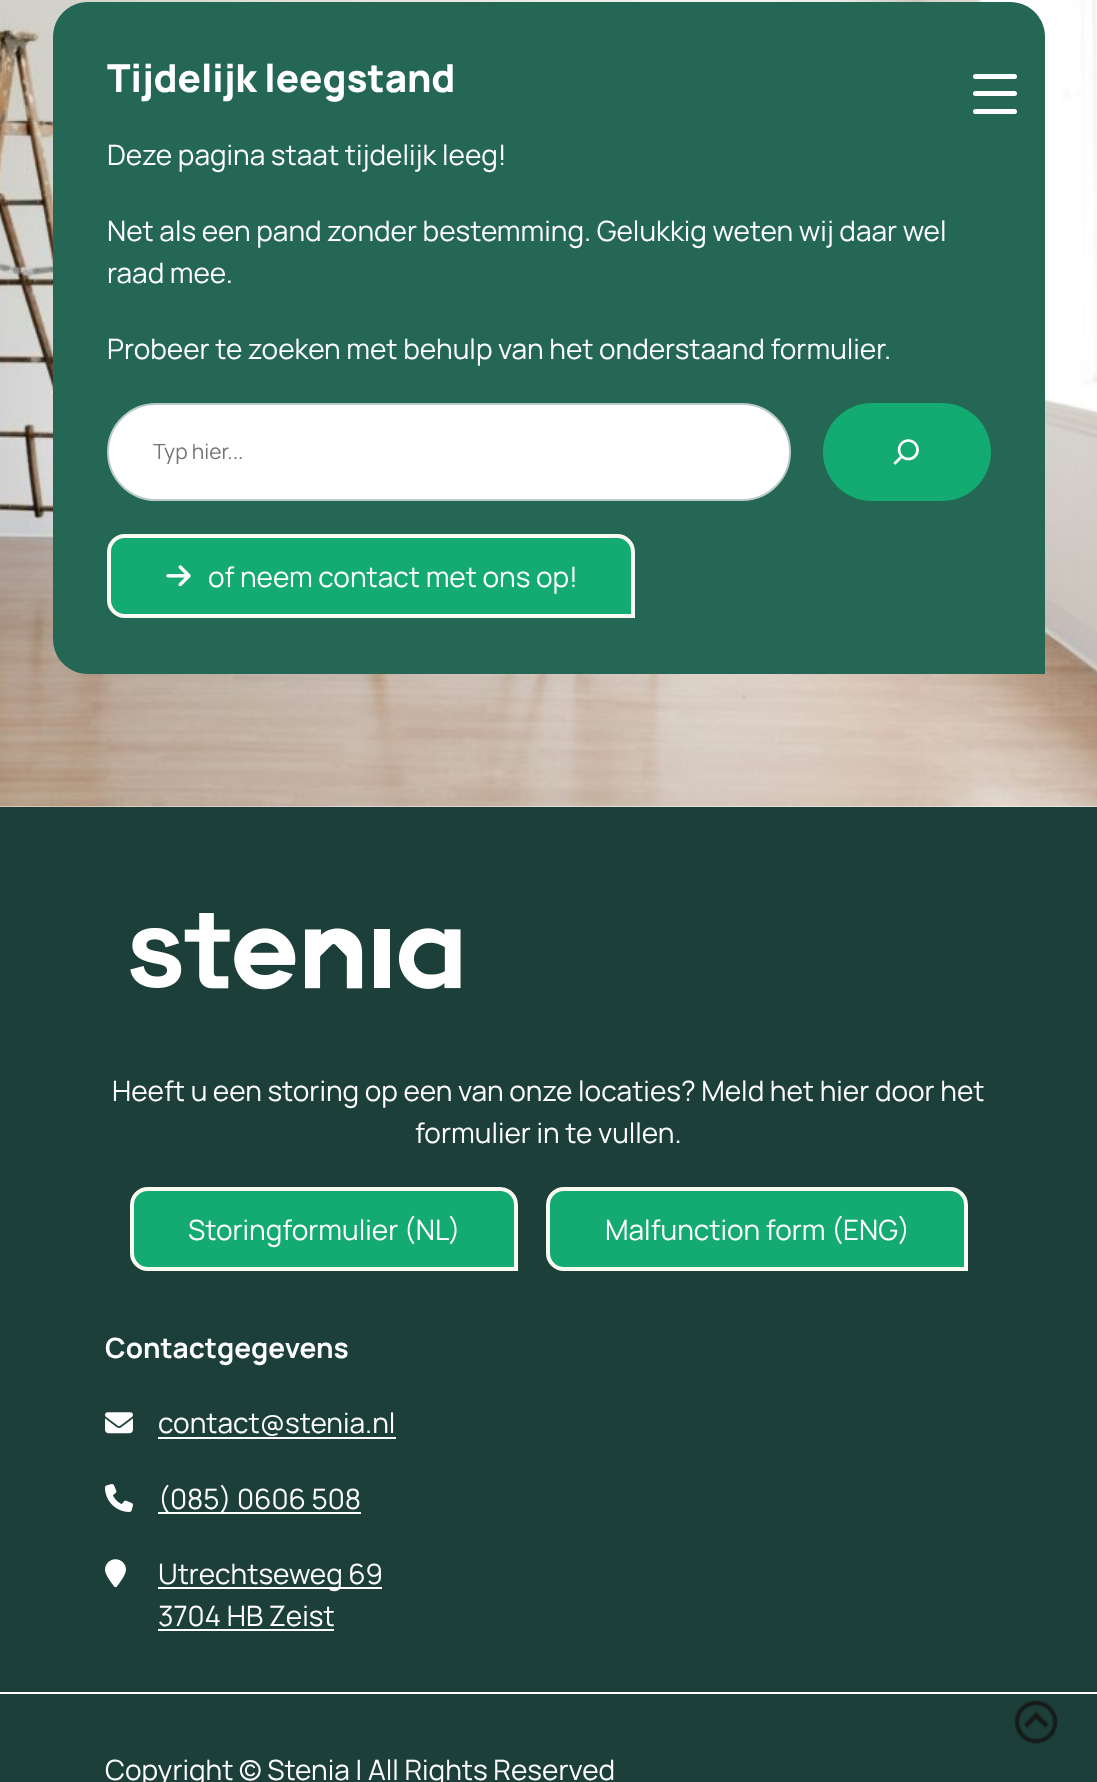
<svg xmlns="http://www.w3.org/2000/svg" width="1097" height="1782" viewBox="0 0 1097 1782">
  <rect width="100%" height="100%" fill="rgb(255,255,255)"/>
  <image x="0" y="0" width="1097" height="807" href="pic1.png"/>
  <path d="M88 2H1010C1029.5 2 1045 17.5 1045 37V674H88C68.5 674 53 658.5 53 639V37C53 17.5 68.5 2 88 2Z" fill="rgb(35,103,84)"/>
  <text x="107" y="92" font-family="Manrope" font-size="38.5" font-weight="800" fill="rgb(255,255,255)">Tijdelijk leegstand</text>
  <g font-family="Manrope" font-size="28" fill="rgb(255,255,255)">
    <text x="107" y="165">Deze pagina staat tijdelijk leeg!</text>
    <text>
      <tspan x="107" y="241">Net als een pand zonder bestemming. Gelukkig weten wij daar wel</tspan>
      <tspan x="107" y="283">raad mee.</tspan>
    </text>
    <text x="107" y="359">Probeer te zoeken met behulp van het onderstaand formulier.</text>
  </g>
  <rect x="108" y="404" width="682" height="96" rx="48" fill="rgb(255,255,255)" stroke="rgb(186,203,199)" stroke-width="2"/>
  <text x="153" y="459" font-family="Manrope" font-size="21" fill="rgb(117,117,117)">Typ hier...</text>
  <rect x="823" y="403" width="168" height="98" rx="49" fill="rgb(20,171,114)"/>
  <image x="893" y="439" width="26" height="26" href="pic2.png"/>
  <path d="M125 536H617C626 536 633 543 633 552V616H125C116 616 109 609 109 600V552C109 543 116 536 125 536Z" fill="rgb(20,171,114)" stroke="rgb(251,250,243)" stroke-width="4"/>
  <image x="166" y="565" width="25" height="22" href="pic3.png"/>
  <text x="208" y="587" font-family="Manrope" font-size="28" fill="rgb(255,255,255)">of neem contact met ons op!</text>
  <rect x="0" y="807" width="1097" height="975" fill="rgb(28,64,57)"/>
  <image x="130" y="913" width="331" height="77" href="pic4.png"/>
  <g font-family="Manrope" font-size="28" fill="rgb(255,255,255)">
    <text x="112" y="1101">Heeft u een storing op een van onze locaties? Meld het hier door het</text>
    <text x="415" y="1143">formulier in te vullen.</text>
  </g>
  <path d="M148 1189H500C509 1189 516 1196 516 1205V1269H148C139 1269 132 1262 132 1253V1205C132 1196 139 1189 148 1189Z" fill="rgb(20,171,114)" stroke="rgb(251,250,243)" stroke-width="4"/>
  <text x="188" y="1240" font-family="Manrope" font-size="28" fill="rgb(255,255,255)">Storingformulier (NL)</text>
  <path d="M564 1189H950C959 1189 966 1196 966 1205V1269H564C555 1269 548 1262 548 1253V1205C548 1196 555 1189 564 1189Z" fill="rgb(20,171,114)" stroke="rgb(251,250,243)" stroke-width="4"/>
  <text x="605" y="1240" font-family="Manrope" font-size="28" fill="rgb(255,255,255)">Malfunction form (ENG)</text>
  <text x="105" y="1358" font-family="Manrope" font-size="28" font-weight="bold" fill="rgb(255,255,255)">Contactgegevens</text>
  <image x="105" y="1412" width="28" height="22" href="pic5.png"/>
  <text x="158" y="1433" font-family="Manrope" font-size="28" fill="rgb(255,255,255)">contact@stenia.nl</text>
  <rect x="158" y="1437" width="238" height="2" fill="rgb(255,255,255)"/>
  <image x="105" y="1484" width="28" height="28" href="pic6.png"/>
  <rect x="158" y="1512" width="203" height="2" fill="rgb(255,255,255)"/>
  <text x="158" y="1509" font-family="Manrope" font-size="28" fill="rgb(255,255,255)">(085) 0606 508</text>
  <image x="105" y="1559" width="21" height="29" href="pic7.png"/>
  <rect x="158" y="1587" width="224" height="2" fill="rgb(255,255,255)"/>
  <g font-family="Manrope" font-size="28" fill="rgb(255,255,255)">
    <text>
      <tspan x="158" y="1584">Utrechtseweg 69</tspan>
      <tspan x="158" y="1626">3704 HB Zeist</tspan>
    </text>
  </g>
  <rect x="158" y="1629" width="176" height="2" fill="rgb(255,255,255)"/>
  <rect x="0" y="1692" width="1097" height="2" fill="rgb(255,255,255)"/>
  <text x="105" y="1780" font-family="Manrope" font-size="28" fill="rgb(255,255,255)">Copyright © Stenia | All Rights Reserved</text>
  <rect x="973" y="91" width="44" height="5" rx="2.5" fill="rgb(255,255,255)"/>
  <rect x="973" y="74" width="44" height="5" rx="2.5" fill="rgb(255,255,255)"/>
  <rect x="973" y="109" width="44" height="5" rx="2.5" fill="rgb(255,255,255)"/>
  <image x="1014" y="1700" width="44" height="44" href="pic8.png"/>
</svg>
